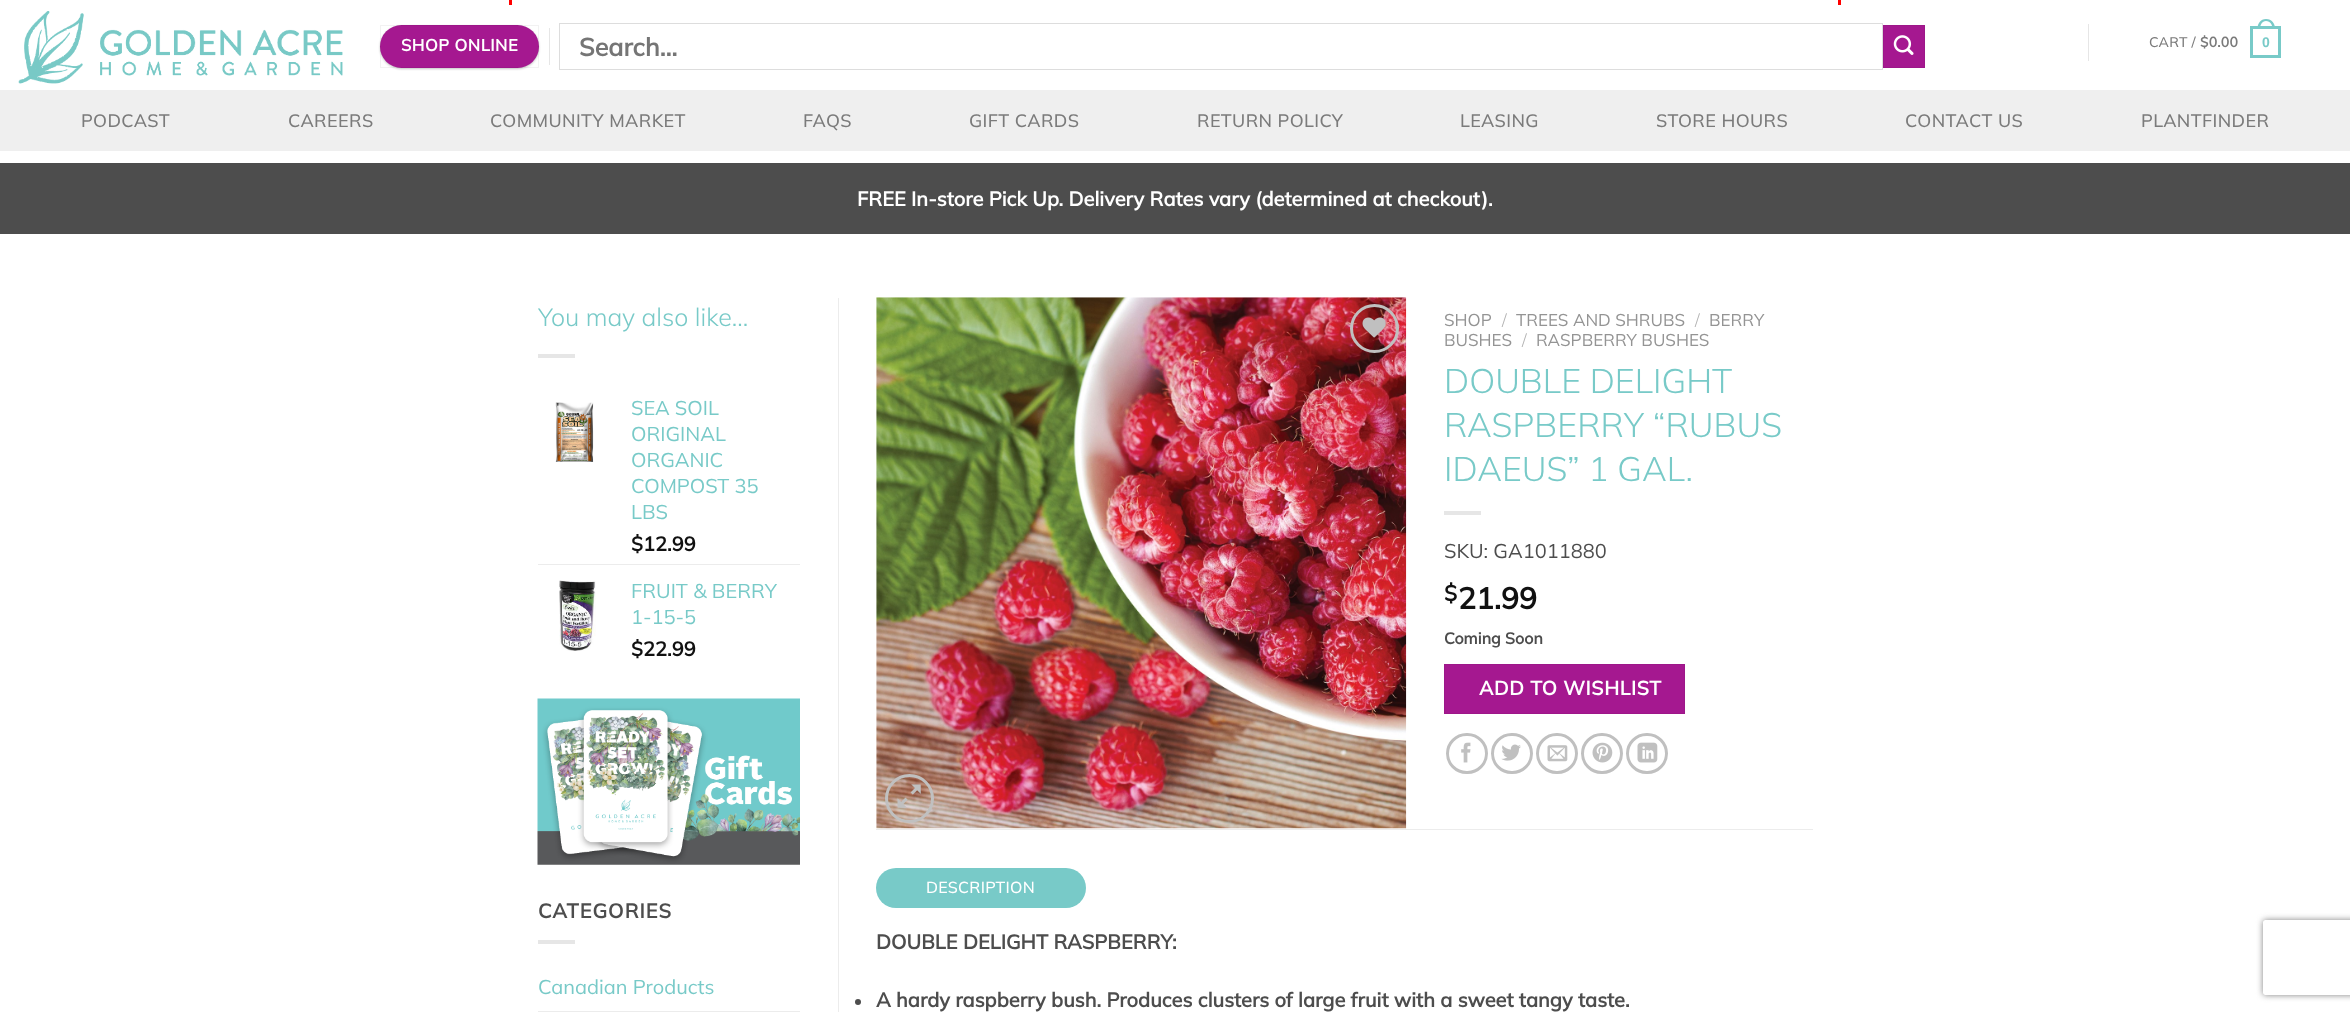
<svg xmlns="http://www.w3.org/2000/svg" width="2350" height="1012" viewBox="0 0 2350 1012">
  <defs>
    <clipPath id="clip1"><path d="M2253 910H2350V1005H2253ZM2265.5 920H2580.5C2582 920 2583 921 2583 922.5V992.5C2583 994 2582 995 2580.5 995H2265.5C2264 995 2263 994 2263 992.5V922.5C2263 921 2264 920 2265.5 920Z" clip-rule="evenodd"/></clipPath>
  </defs>
  <rect width="100%" height="100%" fill="rgb(255,255,255)"/>
  <rect x="509" y="0" width="3" height="5" fill="rgb(255,0,0)"/>
  <rect x="1838" y="0" width="3" height="5" fill="rgb(255,0,0)"/>
  <image x="18" y="11" width="325" height="73" href="pic1.png"/>
  <rect x="380" y="26" width="159" height="43" rx="21.5" fill="rgba(0,0,0,0.24)" filter="blur(1px)"/>
  <rect x="380" y="25" width="159" height="43" rx="21.5" fill="rgb(165,24,144)"/>
  <rect x="380.5" y="25.5" width="158" height="42" fill="none" stroke="rgba(0,0,0,0.05)"/>
  <text x="401" y="51" font-family="Mulish" font-size="16.5" font-weight="bold" letter-spacing="0.5" fill="rgb(255,255,255)">SHOP ONLINE</text>
  <rect x="549" y="28" width="1" height="37" fill="rgb(230,230,230)"/>
  <rect x="559.5" y="23.5" width="1323" height="46" fill="none" stroke="rgb(221,221,221)"/>
  <text x="579" y="56" font-family="Mulish" font-size="25" font-weight="bold" fill="rgb(117,117,117)">Search…</text>
  <rect x="1883.5" y="25.5" width="41" height="42" fill="rgb(165,24,144)" stroke="rgb(157,23,137)"/>
  <image x="1893" y="35" width="21" height="20" href="pic2.png"/>
  <rect x="2088" y="24" width="1" height="37" fill="rgb(230,230,230)"/>
  <text x="2149" y="47" font-family="Mulish" font-size="14" font-weight="500" letter-spacing="0.25" fill="rgb(123,123,123)">CART /</text>
  <text x="2200" y="47" font-family="Mulish" font-size="14" font-weight="bold" letter-spacing="0.25" fill="rgb(123,123,123)">$0.00</text>
  <rect x="2251.5" y="27.5" width="28" height="29" fill="none" stroke="rgb(120,202,200)" stroke-width="3"/>
  <path d="M2266 19C2272 19 2275 23.5 2275 29H2257.5C2257.5 23.5 2260.5 19 2266 19ZM2266 21C2270.5 21 2272.5 25 2272.5 29H2260C2260 25 2262 21 2266 21Z" fill="rgb(120,202,200)" fill-rule="evenodd"/>
  <text x="2262" y="47" font-family="Liberation Sans" font-size="14" font-weight="bold" letter-spacing="0.25" fill="rgb(120,202,200)">0</text>
  <rect x="0" y="90" width="2350" height="61" fill="rgb(239,239,239)"/>
  <g font-family="Mulish" font-size="18" font-weight="500" letter-spacing="0.4" fill="rgb(123,123,123)">
    <text x="81" y="127">PODCAST</text>
    <text x="288" y="127">CAREERS</text>
    <text x="490" y="127">COMMUNITY MARKET</text>
    <text x="803" y="127">FAQS</text>
    <text x="969" y="127">GIFT CARDS</text>
    <text x="1197" y="127">RETURN POLICY</text>
    <text x="1460" y="127">LEASING</text>
    <text x="1656" y="127">STORE HOURS</text>
    <text x="1905" y="127">CONTACT US</text>
    <text x="2141" y="127">PLANTFINDER</text>
  </g>
  <rect x="0" y="163" width="2350" height="71" fill="rgb(77,77,77)"/>
  <text x="857" y="206" font-family="Mulish" font-size="20" font-weight="bold" fill="rgb(255,255,255)">FREE In-store Pick Up. Delivery Rates vary (determined at checkout).</text>
  <text x="538" y="326" font-family="Mulish" font-size="25" font-weight="300" fill="rgb(120,202,200)">You may also like…</text>
  <rect x="538" y="354" width="37" height="4" fill="rgb(230,230,230)"/>
  <image x="555" y="402" width="39" height="60" href="pic3.png"/>
  <g font-family="Mulish" font-size="20" fill="rgb(120,202,200)">
    <text>
      <tspan x="631" y="415">SEA SOIL</tspan>
      <tspan x="631" y="441">ORIGINAL</tspan>
      <tspan x="631" y="467">ORGANIC</tspan>
      <tspan x="631" y="493">COMPOST 35</tspan>
      <tspan x="631" y="519">LBS</tspan>
    </text>
  </g>
  <text x="631" y="551" font-family="Mulish" font-size="20" font-weight="bold" fill="rgb(17,17,17)">$12.99</text>
  <rect x="538" y="564" width="262" height="1" fill="rgb(236,236,236)"/>
  <image x="559" y="580" width="37" height="71" href="pic4.png"/>
  <g font-family="Mulish" font-size="20" fill="rgb(120,202,200)">
    <text>
      <tspan x="631" y="598">FRUIT &amp; BERRY</tspan>
      <tspan x="631" y="624">1-15-5</tspan>
    </text>
  </g>
  <text x="631" y="656" font-family="Mulish" font-size="20" font-weight="bold" fill="rgb(17,17,17)">$22.99</text>
  <image x="537" y="698" width="263" height="167" href="pic5.png"/>
  <text x="538" y="918" font-family="Mulish" font-size="20" font-weight="bold" letter-spacing="1" fill="rgb(77,77,77)">CATEGORIES</text>
  <rect x="538" y="940" width="37" height="4" fill="rgb(230,230,230)"/>
  <text x="538" y="994" font-family="Mulish" font-size="20" fill="rgb(120,202,200)">Canadian Products</text>
  <rect x="538" y="1011" width="262" height="1" fill="rgb(236,236,236)"/>
  <rect x="838" y="298" width="1" height="714" fill="rgb(236,236,236)"/>
  <image x="876" y="297" width="531" height="532" href="pic6.png"/>
  <circle cx="1374.5" cy="328.5" r="23" fill="none" stroke="rgb(192,192,192)" stroke-width="3"/>
  <image x="1362" y="317" width="24" height="21" href="pic7.png"/>
  <circle cx="909.5" cy="798.5" r="23" fill="none" stroke="rgb(192,192,192)" stroke-width="3"/>
  <image x="897" y="784" width="24" height="24" href="pic8.png"/>
  <text x="1444" y="326" font-family="Mulish" font-size="17" fill="rgb(148,148,148)">SHOP</text>
  <text x="1502" y="326" font-family="Mulish" font-size="17" font-weight="300" fill="rgb(178,178,178)">/</text>
  <text x="1516" y="326" font-family="Mulish" font-size="17" fill="rgb(148,148,148)">TREES AND SHRUBS</text>
  <text x="1695" y="326" font-family="Mulish" font-size="17" font-weight="300" fill="rgb(178,178,178)">/</text>
  <g font-family="Mulish" font-size="17" fill="rgb(148,148,148)">
    <text x="1709" y="326">BERRY</text>
    <text x="1444" y="346">BUSHES</text>
  </g>
  <text x="1522" y="346" font-family="Mulish" font-size="17" font-weight="300" fill="rgb(178,178,178)">/</text>
  <text x="1536" y="346" font-family="Mulish" font-size="17" fill="rgb(148,148,148)">RASPBERRY BUSHES</text>
  <g font-family="Mulish" font-size="34" font-weight="300" fill="rgb(120,202,200)">
    <text>
      <tspan x="1444" y="393">DOUBLE DELIGHT</tspan>
      <tspan x="1444" y="437">RASPBERRY “RUBUS</tspan>
      <tspan x="1444" y="481">IDAEUS” 1 GAL.</tspan>
    </text>
  </g>
  <rect x="1444" y="511" width="37" height="4" fill="rgb(230,230,230)"/>
  <text x="1444" y="558" font-family="Mulish" font-size="20" fill="rgb(77,77,77)">SKU: GA1011880</text>
  <text x="1444" y="601" font-family="Mulish" font-size="22" font-weight="bold" fill="rgb(17,17,17)">$</text>
  <text x="1458" y="609" font-family="Mulish" font-size="30" font-weight="bold" fill="rgb(17,17,17)">21.99</text>
  <text x="1444" y="644" font-family="Mulish" font-size="16" font-weight="bold" fill="rgb(77,77,77)">Coming Soon</text>
  <rect x="1444.5" y="664.5" width="240" height="49" fill="rgb(165,24,144)" stroke="rgb(157,23,137)"/>
  <text x="1479" y="695" font-family="Mulish" font-size="19.5" font-weight="bold" letter-spacing="0.6" fill="rgb(255,255,255)">ADD TO WISHLIST</text>
  <rect x="1447.5" y="734.5" width="39" height="38" rx="19" fill="none" stroke="rgb(192,192,192)" stroke-width="3"/>
  <image x="1461" y="742" width="10" height="21" href="pic9.png"/>
  <rect x="1492.5" y="734.5" width="39" height="38" rx="19" fill="none" stroke="rgb(192,192,192)" stroke-width="3"/>
  <image x="1501" y="744" width="20" height="17" href="pic10.png"/>
  <rect x="1537.5" y="734.5" width="39" height="38" rx="19" fill="none" stroke="rgb(192,192,192)" stroke-width="3"/>
  <image x="1547" y="745" width="21" height="17" href="pic11.png"/>
  <rect x="1582.5" y="734.5" width="39" height="38" rx="19" fill="none" stroke="rgb(192,192,192)" stroke-width="3"/>
  <image x="1592" y="742" width="21" height="21" href="pic12.png"/>
  <rect x="1627.5" y="734.5" width="39" height="38" rx="19" fill="none" stroke="rgb(192,192,192)" stroke-width="3"/>
  <image x="1637" y="742" width="21" height="21" href="pic13.png"/>
  <rect x="876" y="829" width="937" height="1" fill="rgb(236,236,236)"/>
  <rect x="876" y="868" width="210" height="40" rx="20" fill="rgb(120,202,200)"/>
  <text x="926" y="893" font-family="Mulish" font-size="16" font-weight="500" letter-spacing="0.25" fill="rgb(255,255,255)">DESCRIPTION</text>
  <text x="876" y="949" font-family="Mulish" font-size="20" font-weight="bold" fill="rgb(77,77,77)">DOUBLE DELIGHT RASPBERRY:</text>
  <circle cx="858" cy="1002" r="3" fill="rgb(77,77,77)"/>
  <text x="876" y="1007" font-family="Mulish" font-size="20" font-weight="bold" fill="rgb(77,77,77)">A hardy raspberry bush. Produces clusters of large fruit with a sweet tangy taste.</text>
  <g clip-path="url(#clip1)">
    <rect x="2263" y="920" width="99" height="75" rx="2.5" fill="rgb(128,128,128)" filter="blur(3px)"/>
  </g>
</svg>
